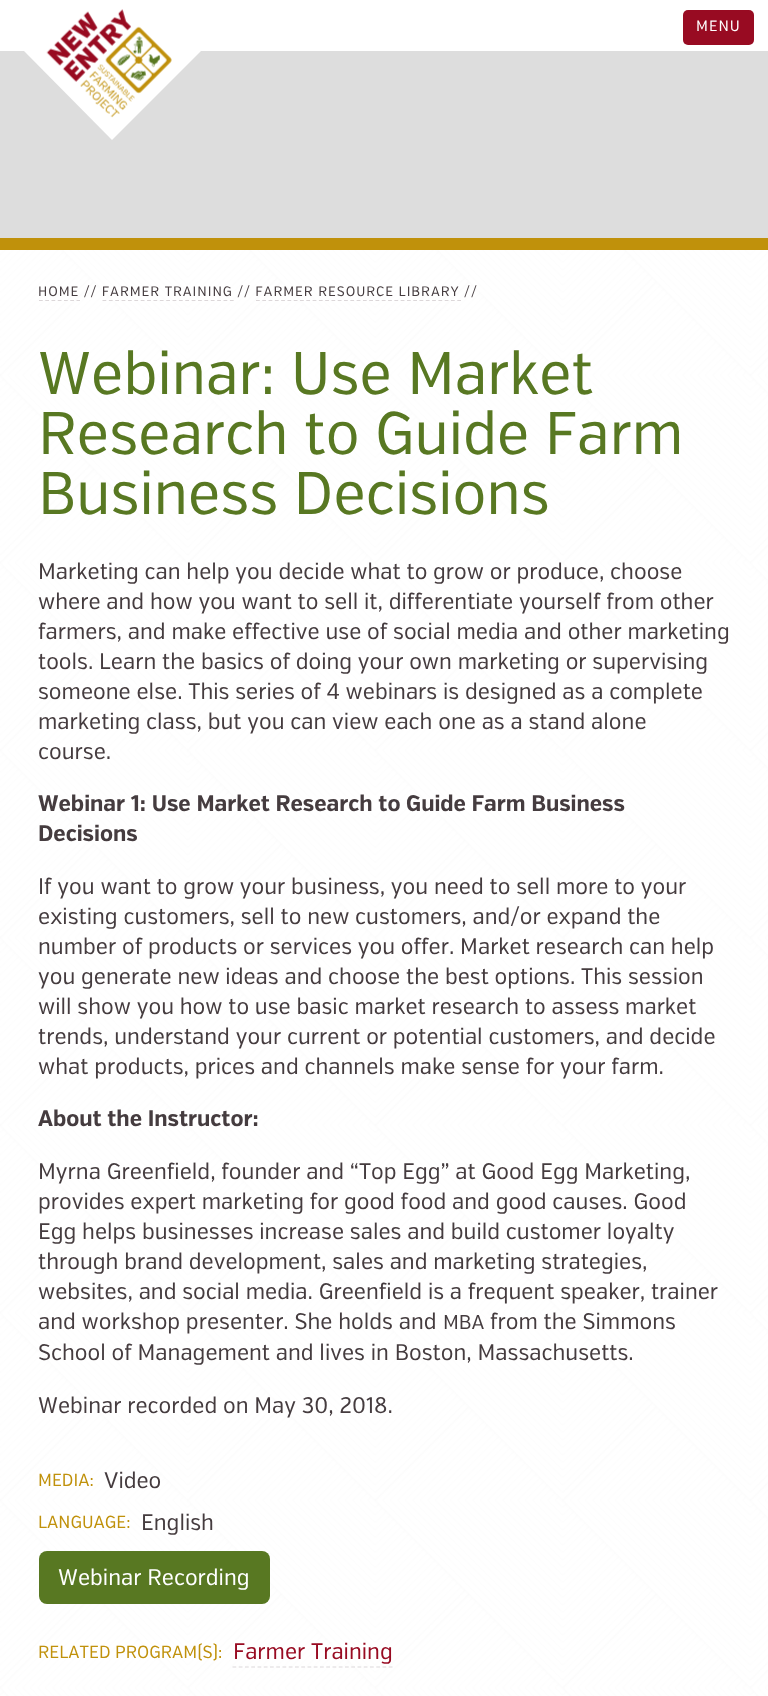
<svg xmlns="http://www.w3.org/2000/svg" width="768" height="1696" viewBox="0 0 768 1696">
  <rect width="100%" height="100%" fill="rgb(255,255,255)"/>
  <image x="0" y="250" width="768" height="1446" href="pic1.png"/>
  <rect x="0" y="51" width="768" height="187" fill="rgb(221,221,221)"/>
  <rect x="0" y="238" width="768" height="12" fill="rgb(192,145,11)"/>
  <path d="M112-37L201 51L112 140L24 51Z" fill="rgb(255,255,255)"/>
  <image x="46" y="9" width="126" height="109" href="pic2.png"/>
  <rect x="683" y="10" width="71" height="35" rx="5" fill="rgb(152,11,34)"/>
  <text x="696" y="31" font-family="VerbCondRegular" font-size="15" letter-spacing="1" fill="rgb(255,255,255)">MENU</text>
  <rect x="0" y="250" width="768" height="1446" fill="rgba(255,255,255,0.85)"/>
  <text x="38" y="296" font-family="VerbCondRegular" font-size="13.75" letter-spacing="0.95" fill="rgb(69,60,63)">HOME // FARMER TRAINING // FARMER RESOURCE LIBRARY //</text>
  <path d="M39 300.5H80" fill="none" stroke="rgb(220,215,217)" stroke-width="1.2" stroke-dasharray="3.75 2.5"/>
  <path d="M102.5 300.5H234" fill="none" stroke="rgb(220,215,217)" stroke-width="1.2" stroke-dasharray="3.75 2.62"/>
  <path d="M256 300.5H461" fill="none" stroke="rgb(220,215,217)" stroke-width="1.2" stroke-dasharray="3.75 2.54"/>
  <g font-family="VerbCondRegular" font-size="60" fill="rgb(88,120,34)">
    <text>
      <tspan x="38" y="394">Webinar: Use Market</tspan>
      <tspan x="38" y="454">Research to Guide Farm</tspan>
      <tspan x="38" y="514">Business Decisions</tspan>
    </text>
  </g>
  <g font-family="VerbCondRegular" font-size="22.5" fill="rgb(69,60,63)">
    <text>
      <tspan x="38" y="579">Marketing can help you decide what to grow or produce, choose</tspan>
      <tspan x="38" y="609">where and how you want to sell it, differentiate yourself from other</tspan>
      <tspan x="38" y="639">farmers, and make effective use of social media and other marketing</tspan>
      <tspan x="38" y="669">tools. Learn the basics of doing your own marketing or supervising</tspan>
      <tspan x="38" y="699">someone else. This series of 4 webinars is designed as a complete</tspan>
      <tspan x="38" y="729">marketing class, but you can view each one as a stand alone</tspan>
      <tspan x="38" y="759">course.</tspan>
    </text>
  </g>
  <g font-family="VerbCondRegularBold" font-size="22.5" font-weight="bold" fill="rgb(69,60,63)">
    <text>
      <tspan x="38" y="811">Webinar 1: Use Market Research to Guide Farm Business</tspan>
      <tspan x="38" y="841">Decisions</tspan>
    </text>
  </g>
  <g font-family="VerbCondRegular" font-size="22.5" fill="rgb(69,60,63)">
    <text>
      <tspan x="38" y="894">If you want to grow your business, you need to sell more to your</tspan>
      <tspan x="38" y="924">existing customers, sell to new customers, and/or expand the</tspan>
      <tspan x="38" y="954">number of products or services you offer. Market research can help</tspan>
      <tspan x="38" y="984">you generate new ideas and choose the best options. This session</tspan>
      <tspan x="38" y="1014">will show you how to use basic market research to assess market</tspan>
      <tspan x="38" y="1044">trends, understand your current or potential customers, and decide</tspan>
      <tspan x="38" y="1074">what products, prices and channels make sense for your farm.</tspan>
    </text>
  </g>
  <text x="38" y="1126" font-family="VerbCondRegularBold" font-size="22.5" font-weight="bold" fill="rgb(69,60,63)">About the Instructor:</text>
  <g font-family="VerbCondRegular" font-size="22.5" fill="rgb(69,60,63)">
    <text>
      <tspan x="38" y="1179">Myrna Greenfield, founder and “Top Egg” at Good Egg Marketing,</tspan>
      <tspan x="38" y="1209">provides expert marketing for good food and good causes. Good</tspan>
      <tspan x="38" y="1239">Egg helps businesses increase sales and build customer loyalty</tspan>
      <tspan x="38" y="1269">through brand development, sales and marketing strategies,</tspan>
      <tspan x="38" y="1299">websites, and social media. Greenfield is a frequent speaker, trainer</tspan>
      <tspan x="38" y="1329">and workshop presenter. She holds and</tspan>
    </text>
  </g>
  <text x="443" y="1329" font-family="VerbCondRegular" font-size="20" fill="rgb(69,60,63)">MBA</text>
  <g font-family="VerbCondRegular" font-size="22.5" fill="rgb(69,60,63)">
    <text x="490" y="1329">from the Simmons</text>
    <text x="38" y="1360">School of Management and lives in Boston, Massachusetts.</text>
    <text x="38" y="1413">Webinar recorded on May 30, 2018.</text>
  </g>
  <text x="38" y="1486" font-family="VerbCondRegular" font-size="17.5" fill="rgb(192,145,11)">MEDIA:</text>
  <text x="104" y="1488" font-family="VerbCondRegular" font-size="22.5" fill="rgb(69,60,63)">Video</text>
  <text x="38" y="1528" font-family="VerbCondRegular" font-size="17.5" fill="rgb(192,145,11)">LANGUAGE:</text>
  <text x="141" y="1530" font-family="VerbCondRegular" font-size="22.5" fill="rgb(69,60,63)">English</text>
  <rect x="39" y="1551" width="231" height="53" rx="8" fill="rgb(88,120,34)"/>
  <text x="58" y="1585" font-family="VerbCondRegular" font-size="22.5" fill="rgb(255,255,255)">Webinar Recording</text>
  <text x="38" y="1658" font-family="VerbCondRegular" font-size="17.5" fill="rgb(192,145,11)">RELATED PROGRAM(S):</text>
  <text x="233" y="1659" font-family="VerbCondRegular" font-size="22.5" fill="rgb(152,11,34)">Farmer Training</text>
  <path d="M232.5 1667H392.5" fill="none" stroke="rgb(220,215,217)" stroke-width="1.2" stroke-dasharray="3.75 2.5"/>
</svg>
